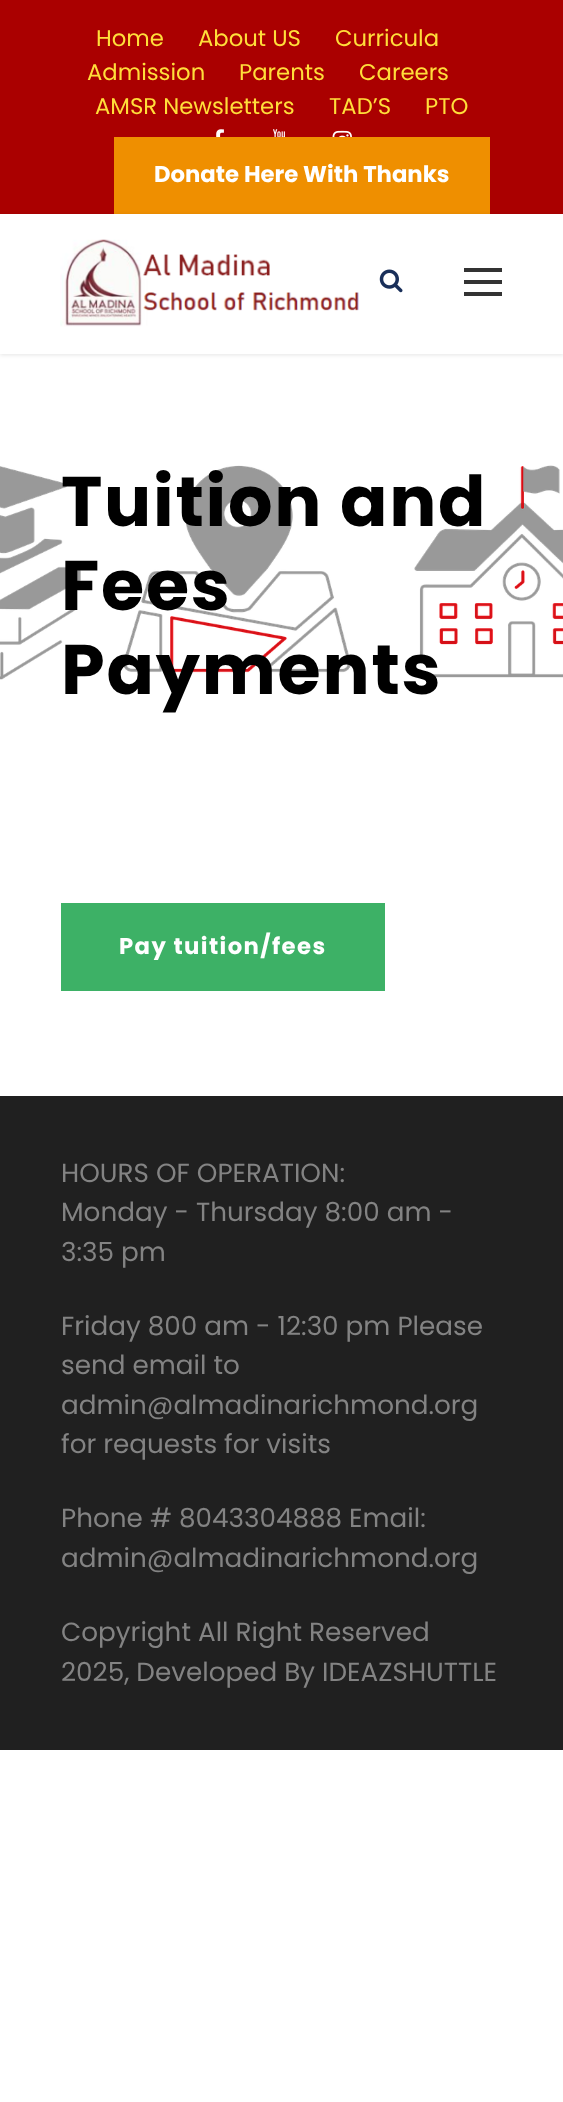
<svg xmlns="http://www.w3.org/2000/svg" width="563" height="2102" viewBox="0 0 563 2102">
  <rect width="100%" height="100%" fill="rgb(255,255,255)"/>
  <rect x="0" y="0" width="563" height="214" fill="rgb(170,0,0)"/>
  <g font-family="Poppins" font-size="22.75" fill="rgb(255,222,58)">
    <text x="96" y="46">Home</text>
    <text x="198" y="46">About US</text>
    <text x="335" y="46">Curricula</text>
    <text x="87" y="80">Admission</text>
    <text x="239" y="80">Parents</text>
    <text x="359" y="80">Careers</text>
    <text x="95" y="114">AMSR Newsletters</text>
    <text x="329" y="114">TAD’S</text>
    <text x="425" y="114">PTO</text>
  </g>
  <image x="216" y="129" width="8" height="8" href="pic1.png"/>
  <image x="273" y="129" width="12" height="8" href="pic2.png"/>
  <image x="332" y="130" width="20" height="7" href="pic3.png"/>
  <rect x="114" y="137" width="376" height="77" fill="rgb(239,143,0)"/>
  <text x="154" y="182" font-family="Poppins" font-size="22.75" font-weight="bold" fill="rgb(255,255,255)">Donate Here With Thanks</text>
  <rect x="0" y="215" width="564" height="140" fill="rgba(0,0,0,0.1)" filter="blur(2px)"/>
  <rect x="0" y="214" width="563" height="140" fill="rgb(255,255,255)"/>
  <image x="60" y="239" width="299" height="88" href="pic4.png"/>
  <image x="379" y="269" width="24" height="24" href="pic5.png"/>
  <rect x="464" y="268" width="38" height="4" fill="rgb(51,51,51)"/>
  <rect x="464" y="280" width="38" height="4" fill="rgb(51,51,51)"/>
  <rect x="464" y="292" width="38" height="4" fill="rgb(51,51,51)"/>
  <image x="0" y="465" width="563" height="215" href="pic6.png"/>
  <g font-family="Poppins" font-size="70" font-weight="bold" letter-spacing="1.75" fill="rgb(0,0,0)">
    <text>
      <tspan x="61" y="526">Tuition and</tspan>
      <tspan x="61" y="610">Fees</tspan>
      <tspan x="61" y="694">Payments</tspan>
    </text>
  </g>
  <rect x="61" y="903" width="324" height="88" fill="rgb(61,177,102)"/>
  <text x="119" y="954" font-family="Poppins" font-size="22.75" font-weight="bold" letter-spacing="1.4" fill="rgb(255,255,255)">Pay tuition/fees</text>
  <rect x="0" y="1096" width="563" height="654" fill="rgb(32,32,32)"/>
  <g font-family="Poppins" font-size="26.25" fill="rgb(131,131,131)">
    <text>
      <tspan x="61" y="1182">HOURS OF OPERATION:</tspan>
      <tspan x="61" y="1221">Monday - Thursday 8:00 am -</tspan>
      <tspan x="61" y="1261">3:35 pm</tspan>
    </text>
    <text>
      <tspan x="61" y="1335">Friday 800 am - 12:30 pm Please</tspan>
      <tspan x="61" y="1374">send email to</tspan>
      <tspan x="61" y="1414">admin@almadinarichmond.org</tspan>
      <tspan x="61" y="1453">for requests for visits</tspan>
    </text>
    <text>
      <tspan x="61" y="1527">Phone # 8043304888 Email:</tspan>
      <tspan x="61" y="1567">admin@almadinarichmond.org</tspan>
    </text>
    <text>
      <tspan x="61" y="1641">Copyright All Right Reserved</tspan>
      <tspan x="61" y="1681">2025, Developed By IDEAZSHUTTLE</tspan>
    </text>
  </g>
</svg>
